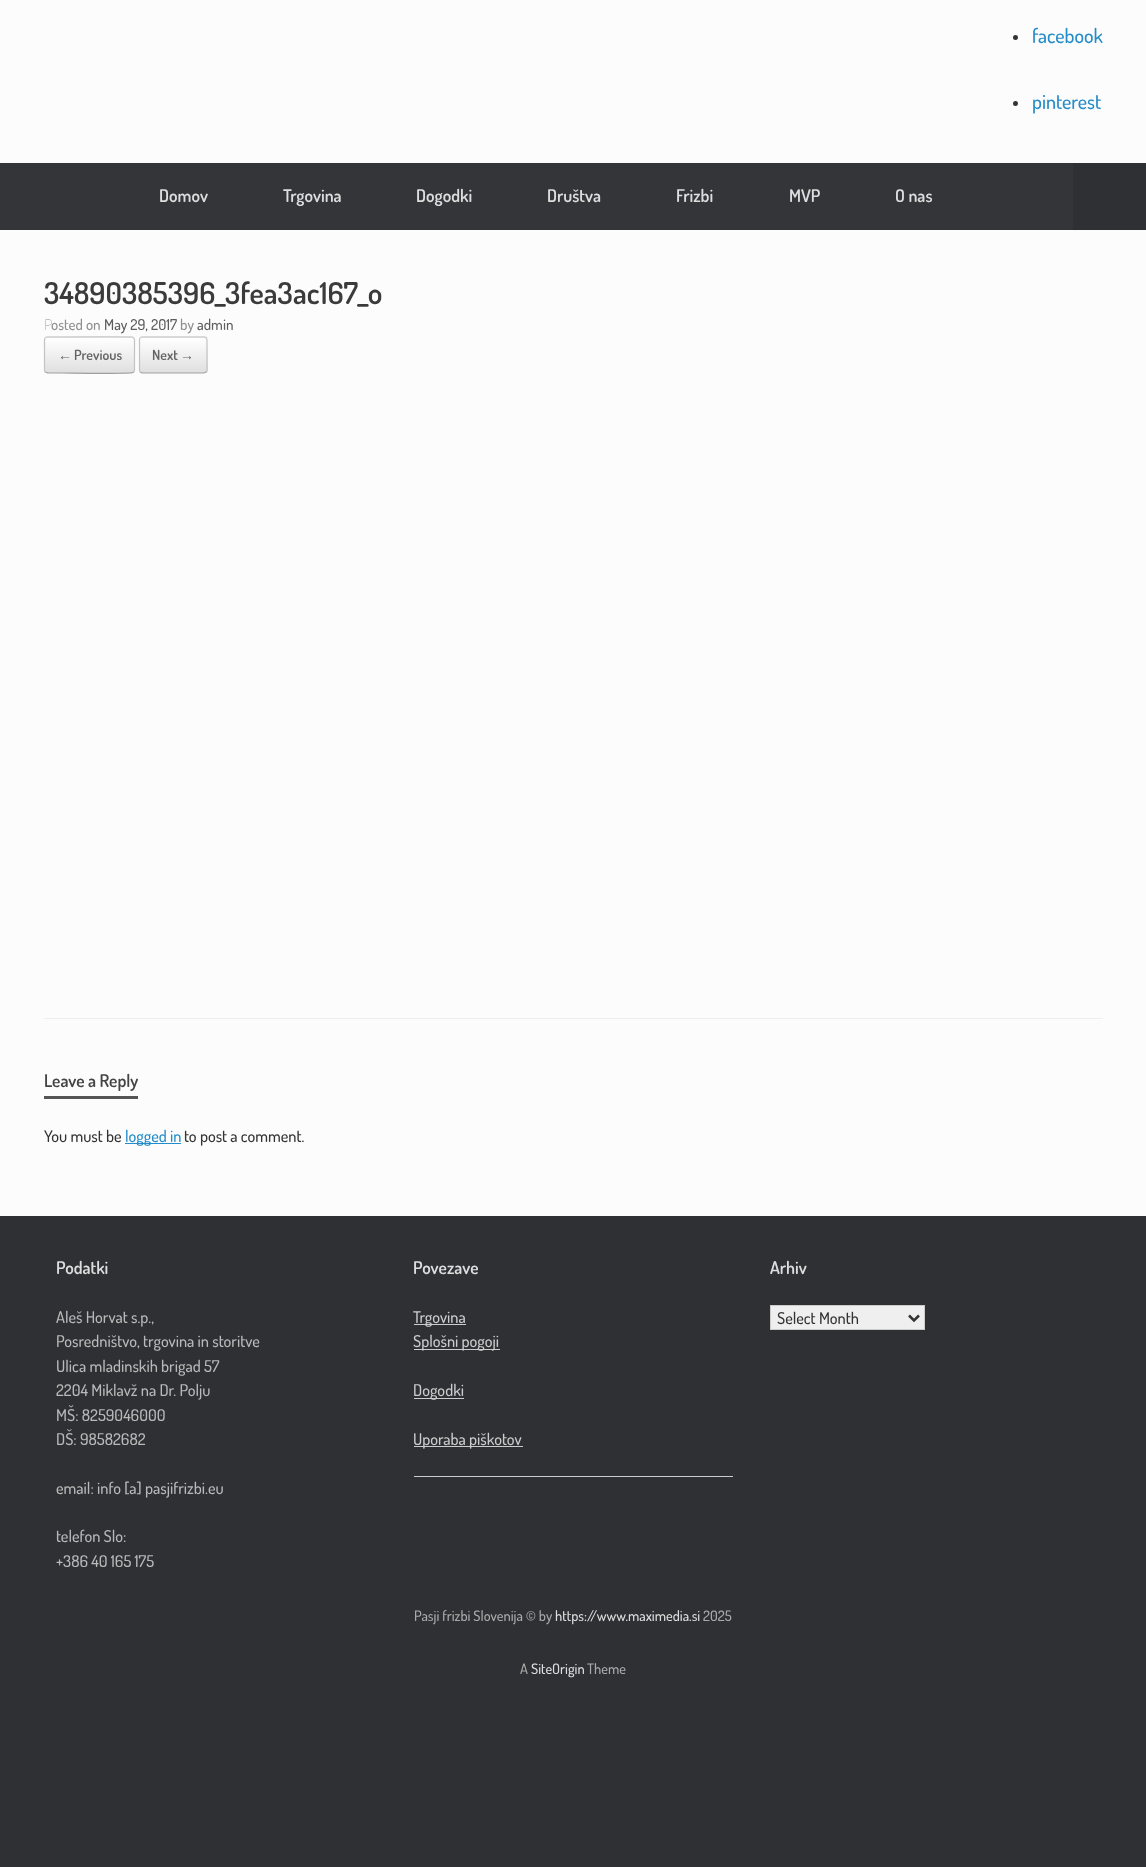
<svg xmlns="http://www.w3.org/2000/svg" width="1146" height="1867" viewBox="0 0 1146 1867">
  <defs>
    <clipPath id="clip1"><rect x="44" y="336" width="91" height="38" rx="4"/></clipPath>
    <linearGradient id="g1" gradientUnits="userSpaceOnUse" x1="45" y1="338" x2="45" y2="303"><stop offset="0" stop-color="rgb(223,223,223)"/><stop offset="1" stop-color="rgb(255,255,255)"/></linearGradient>
    <linearGradient id="g2" gradientUnits="userSpaceOnUse" x1="45" y1="373" x2="45" y2="338"><stop offset="0" stop-color="rgb(223,223,223)"/><stop offset="1" stop-color="rgb(255,255,255)"/></linearGradient>
    <linearGradient id="g3" gradientUnits="userSpaceOnUse" x1="45" y1="408" x2="45" y2="373"><stop offset="0" stop-color="rgb(223,223,223)"/><stop offset="1" stop-color="rgb(255,255,255)"/></linearGradient>
    <clipPath id="clip2"><rect x="139" y="336" width="69" height="38" rx="4"/></clipPath>
    <linearGradient id="g4" gradientUnits="userSpaceOnUse" x1="140" y1="338" x2="140" y2="303"><stop offset="0" stop-color="rgb(223,223,223)"/><stop offset="1" stop-color="rgb(255,255,255)"/></linearGradient>
    <linearGradient id="g5" gradientUnits="userSpaceOnUse" x1="140" y1="373" x2="140" y2="338"><stop offset="0" stop-color="rgb(223,223,223)"/><stop offset="1" stop-color="rgb(255,255,255)"/></linearGradient>
    <linearGradient id="g6" gradientUnits="userSpaceOnUse" x1="140" y1="408" x2="140" y2="373"><stop offset="0" stop-color="rgb(223,223,223)"/><stop offset="1" stop-color="rgb(255,255,255)"/></linearGradient>
  </defs>
  <rect width="100%" height="100%" fill="rgb(47,48,51)"/>
  <rect x="0" y="0" width="1146" height="163" fill="rgb(252,252,252)"/>
  <circle cx="1015.5" cy="37.5" r="2.5" fill="rgb(51,51,51)"/>
  <text x="1032" y="43" font-family="Dosis" font-size="20" font-weight="500" fill="rgb(36,140,200)">facebook</text>
  <circle cx="1015.5" cy="103.5" r="2.5" fill="rgb(51,51,51)"/>
  <text x="1032" y="109" font-family="Dosis" font-size="20" font-weight="500" fill="rgb(36,140,200)">pinterest</text>
  <rect x="0" y="163" width="1073" height="67" fill="rgb(52,53,56)"/>
  <g font-family="Dosis" font-size="17.5" font-weight="600" fill="rgb(221,221,221)">
    <text x="159" y="202">Domov</text>
    <text x="283" y="202">Trgovina</text>
    <text x="416" y="202">Dogodki</text>
    <text x="547" y="202">Društva</text>
    <text x="676" y="202">Frizbi</text>
    <text x="789" y="202">MVP</text>
    <text x="895" y="202">O nas</text>
  </g>
  <rect x="0" y="230" width="1146" height="986" fill="rgb(252,252,252)"/>
  <rect x="44" y="1018" width="1059" height="1" fill="rgb(238,238,238)"/>
  <text x="44" y="304" font-family="Dosis" font-size="30" font-weight="600" fill="rgb(59,59,59)">34890385396_3fea3ac167_o</text>
  <text x="44" y="330" font-family="Noto Sans" font-size="15" font-weight="100" fill="rgb(143,143,143)">P</text>
  <text x="51" y="330" font-family="Dosis" font-size="15" font-weight="500" fill="rgb(143,143,143)">osted on</text>
  <text x="104" y="330" font-family="Dosis" font-size="15" font-weight="500" fill="rgb(94,94,94)">May 29, 2017</text>
  <text x="180" y="330" font-family="Dosis" font-size="15" font-weight="500" fill="rgb(143,143,143)">by</text>
  <text x="197" y="330" font-family="Dosis" font-size="15" font-weight="500" fill="rgb(94,94,94)">admin</text>
  <g clip-path="url(#clip1)">
    <rect x="44" y="336" width="91" height="2" fill="url(#g1)"/>
    <rect x="44" y="338" width="91" height="35" fill="url(#g2)"/>
    <rect x="44" y="373" width="91" height="1" fill="url(#g3)"/>
  </g>
  <path d="M45.5 338L47.5 337H61.5C69.5 337 131 336 133 337.5L133.5 338" fill="none" stroke="rgb(210,210,210)" stroke-width="1.2"/>
  <path d="M133.5 338C134 338.5 134.5 339 134.5 340V370C134.5 371 134 371.5 133.5 372" fill="none" stroke="rgb(195,195,195)" stroke-width="1.2"/>
  <path d="M133.5 372L133 372.5C131 374 69.5 373 61.5 373H47.5L45.5 372" fill="none" stroke="rgb(159,159,159)" stroke-width="1.2"/>
  <path d="M45.5 372C44.5 371.5 44.5 371 44.5 370V340C44.5 339 44.5 338.5 45.5 338" fill="none" stroke="rgb(195,195,195)" stroke-width="1.2"/>
  <text x="58" y="360" font-family="Liberation Serif" font-size="14" font-weight="bold" fill="rgb(100,100,100)">←</text>
  <text x="74" y="360" font-family="Dosis" font-size="14" font-weight="600" fill="rgb(100,100,100)">Previous</text>
  <g clip-path="url(#clip2)">
    <rect x="139" y="336" width="69" height="2" fill="url(#g4)"/>
    <rect x="139" y="338" width="69" height="35" fill="url(#g5)"/>
    <rect x="139" y="373" width="69" height="1" fill="url(#g6)"/>
  </g>
  <path d="M140.5 338L142 337H204L206 338" fill="none" stroke="rgb(210,210,210)" stroke-width="1.2"/>
  <path d="M206 338C206.5 338.5 207 339 207 340V370C207 371 206.5 371.5 206 372" fill="none" stroke="rgb(195,195,195)" stroke-width="1.2"/>
  <path d="M206 372L204 373H142L140.5 372" fill="none" stroke="rgb(159,159,159)" stroke-width="1.2"/>
  <path d="M140.5 372C139.5 371.5 139.5 371 139.5 370V340C139.5 339 139.5 338.5 140.5 338" fill="none" stroke="rgb(195,195,195)" stroke-width="1.2"/>
  <text x="152" y="360" font-family="Dosis" font-size="14" font-weight="600" fill="rgb(100,100,100)">Next</text>
  <text x="180" y="360" font-family="Liberation Serif" font-size="14" font-weight="bold" fill="rgb(100,100,100)">→</text>
  <rect x="44" y="1096" width="94" height="3" fill="rgb(85,85,85)"/>
  <text x="44" y="1087" font-family="Dosis" font-size="17.5" font-weight="600" fill="rgb(68,68,68)">Leave a Reply</text>
  <text x="44" y="1142" font-family="Dosis" font-size="16.25" font-weight="500" fill="rgb(51,51,51)">You must be</text>
  <rect x="125" y="1143" width="56" height="1" fill="rgb(36,140,200)"/>
  <text x="125" y="1142" font-family="Dosis" font-size="16.25" font-weight="500" fill="rgb(36,140,200)">logged in</text>
  <text x="184" y="1142" font-family="Dosis" font-size="16.25" font-weight="500" fill="rgb(51,51,51)">to post a comment.</text>
  <text x="56" y="1274" font-family="Dosis" font-size="17.5" font-weight="600" fill="rgb(221,221,221)">Podatki</text>
  <g font-family="Dosis" font-size="16.25" font-weight="500" fill="rgb(185,185,185)">
    <text>
      <tspan x="56" y="1323">Aleš Horvat s.p.,</tspan>
      <tspan x="56" y="1347">Posredništvo, trgovina in storitve</tspan>
      <tspan x="56" y="1372">Ulica mladinskih brigad 57</tspan>
      <tspan x="56" y="1396">2204 Miklavž na Dr. Polju</tspan>
      <tspan x="56" y="1421">MŠ: 8259046000</tspan>
      <tspan x="56" y="1445">DŠ: 98582682</tspan>
    </text>
    <text x="56" y="1494">email: info [a] pasjifrizbi.eu</text>
    <text>
      <tspan x="56" y="1542">telefon Slo:</tspan>
      <tspan x="56" y="1567">+386 40 165 175</tspan>
    </text>
  </g>
  <text x="413" y="1274" font-family="Dosis" font-size="17.5" font-weight="600" fill="rgb(221,221,221)">Povezave</text>
  <rect x="414" y="1324" width="52" height="1" fill="rgb(204,204,204)"/>
  <text x="413" y="1323" font-family="Dosis" font-size="16.25" font-weight="500" fill="rgb(204,204,204)">Trgovina</text>
  <rect x="414" y="1349" width="86" height="1" fill="rgb(204,204,204)"/>
  <text x="413" y="1347" font-family="Dosis" font-size="16.25" font-weight="500" fill="rgb(204,204,204)">Splošni pogoji</text>
  <rect x="414" y="1398" width="50" height="1" fill="rgb(204,204,204)"/>
  <text x="413" y="1396" font-family="Dosis" font-size="16.25" font-weight="500" fill="rgb(204,204,204)">Dogodki</text>
  <rect x="414" y="1446" width="109" height="1" fill="rgb(204,204,204)"/>
  <text x="413" y="1445" font-family="Dosis" font-size="16.25" font-weight="500" fill="rgb(204,204,204)">Uporaba piškotov</text>
  <rect x="414" y="1476" width="319" height="1" fill="rgb(204,204,204)"/>
  <text x="770" y="1274" font-family="Dosis" font-size="17.5" font-weight="600" fill="rgb(221,221,221)">Arhiv</text>
  <rect x="770.5" y="1305.5" width="154" height="24" fill="rgb(239,239,239)" stroke="rgb(204,204,204)"/>
  <path d="M909 1315.5L914 1320.5L919 1315.5" fill="none" stroke="rgb(51,51,51)" stroke-width="2.5"/>
  <text x="777" y="1324" font-family="Dosis" font-size="16.25" font-weight="500" fill="rgb(51,51,51)">Select Month</text>
  <text x="414" y="1621" font-family="Dosis" font-size="14.4" font-weight="500" fill="rgb(170,170,170)">Pasji frizbi Slovenija © by</text>
  <text x="555" y="1621" font-family="Dosis" font-size="14.4" font-weight="500" fill="rgb(221,221,221)">https://www.maximedia.si</text>
  <g font-family="Dosis" font-size="14.4" font-weight="500" fill="rgb(170,170,170)">
    <text x="703" y="1621">2025</text>
    <text x="520" y="1674">A</text>
  </g>
  <text x="531" y="1674" font-family="Dosis" font-size="14.4" font-weight="500" fill="rgb(221,221,221)">SiteOrigin</text>
  <text x="587" y="1674" font-family="Dosis" font-size="14.4" font-weight="500" fill="rgb(170,170,170)">Theme</text>
</svg>
